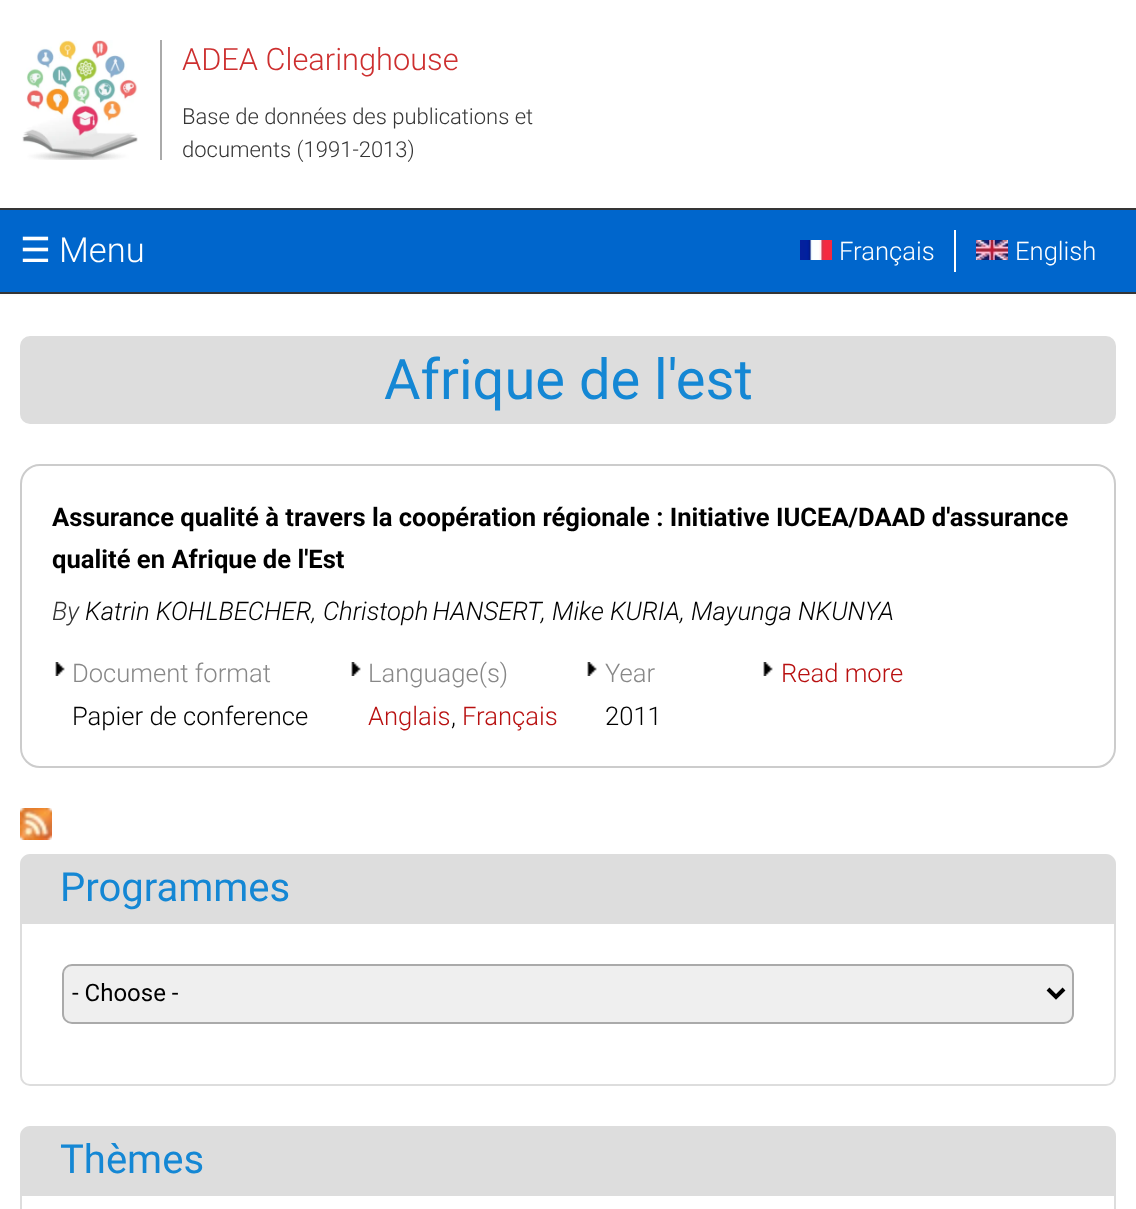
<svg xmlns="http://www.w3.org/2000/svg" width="1136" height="1209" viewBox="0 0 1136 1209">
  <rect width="100%" height="100%" fill="rgb(255,255,255)"/>
  <rect x="160" y="40" width="2" height="120" fill="rgb(170,170,170)"/>
  <image x="22" y="40" width="116" height="120" href="pic1.png"/>
  <text x="182" y="70" font-family="Roboto" font-size="30.75" font-weight="300" fill="rgb(205,47,47)">ADEA Clearinghouse</text>
  <g font-family="Roboto" font-size="22" font-weight="300" fill="rgb(53,53,53)">
    <text>
      <tspan x="182" y="124">Base de données des publications et</tspan>
      <tspan x="182" y="157">documents (1991-2013)</tspan>
    </text>
  </g>
  <rect x="0" y="210" width="1136" height="82" fill="rgb(0,102,204)"/>
  <rect x="0" y="208" width="1136" height="2" fill="rgb(53,53,53)"/>
  <rect x="0" y="292" width="1136" height="2" fill="rgb(53,53,53)"/>
  <text x="20" y="262" font-family="DejaVu Sans" font-size="34.5" fill="rgb(255,255,255)">☰</text>
  <text x="59" y="262" font-family="Roboto" font-size="34.5" font-weight="300" fill="rgb(255,255,255)">Menu</text>
  <image x="800" y="240" width="32" height="20" href="pic2.png"/>
  <text x="839" y="260" font-family="Roboto" font-size="25.6" font-weight="300" fill="rgb(255,255,255)">Français</text>
  <rect x="954" y="230" width="2" height="42" fill="rgb(255,255,255)"/>
  <image x="976" y="240" width="32" height="20" href="pic3.png"/>
  <text x="1015" y="260" font-family="Roboto" font-size="25.6" font-weight="300" fill="rgb(255,255,255)">English</text>
  <rect x="0" y="294" width="1136" height="2" fill="rgb(252,252,252)"/>
  <rect x="20" y="336" width="1096" height="88" rx="10" fill="rgb(221,221,221)"/>
  <text x="384" y="399" font-family="Roboto" font-size="56" fill="rgb(20,135,212)">Afrique de l'est</text>
  <rect x="21" y="465" width="1094" height="302" rx="19" fill="none" stroke="rgb(204,204,204)" stroke-width="2"/>
  <g font-family="Roboto" font-size="25.6" font-weight="bold" fill="rgb(0,0,0)">
    <text>
      <tspan x="52" y="526">Assurance qualité à travers la coopération régionale : Initiative IUCEA/DAAD d'assurance</tspan>
      <tspan x="52" y="568">qualité en Afrique de l'Est</tspan>
    </text>
  </g>
  <text x="52" y="620" font-family="Roboto" font-size="25.6" font-weight="300" font-style="italic" fill="rgb(53,53,53)">By</text>
  <g font-family="Roboto" font-size="25.6" font-weight="300" font-style="italic" fill="rgb(0,0,0)">
    <text x="85" y="620">Katrin KOHLBECHER,</text>
    <text x="323" y="620" word-spacing="-2">Christoph HANSERT</text>
    <text x="541" y="620">, Mike KURIA, Mayunga NKUNYA</text>
  </g>
  <image x="55" y="662" width="10" height="14" href="pic4.png"/>
  <text x="72" y="682" font-family="Roboto" font-size="25.6" font-weight="300" fill="rgb(136,136,136)">Document format</text>
  <text x="72" y="725" font-family="Roboto" font-size="25.6" font-weight="300" fill="rgb(0,0,0)">Papier de conference</text>
  <image x="351" y="662" width="10" height="14" href="pic4.png"/>
  <text x="368" y="682" font-family="Roboto" font-size="25.6" font-weight="300" fill="rgb(136,136,136)">Language(s)</text>
  <text x="368" y="725" font-family="Roboto" font-size="25.6" font-weight="300" fill="rgb(184,16,16)">Anglais</text>
  <text x="451" y="725" font-family="Roboto" font-size="25.6" font-weight="300" fill="rgb(0,0,0)">,</text>
  <text x="462" y="725" font-family="Roboto" font-size="25.6" font-weight="300" fill="rgb(184,16,16)">Français</text>
  <image x="587" y="662" width="10" height="14" href="pic4.png"/>
  <text x="605" y="682" font-family="Roboto" font-size="25.6" font-weight="300" fill="rgb(136,136,136)">Year</text>
  <text x="605" y="725" font-family="Roboto" font-size="25.6" font-weight="300" fill="rgb(0,0,0)">2011</text>
  <image x="763" y="662" width="10" height="14" href="pic4.png"/>
  <text x="781" y="682" font-family="Roboto" font-size="25.6" font-weight="300" fill="rgb(184,16,16)">Read more</text>
  <image x="20" y="808" width="32" height="32" href="pic5.png"/>
  <path d="M30 854H1106C1111.5 854 1116 858.5 1116 864V922H20V864C20 858.5 24.5 854 30 854Z" fill="rgb(221,221,221)"/>
  <text x="60" y="901" font-family="Roboto" font-size="40" fill="rgb(20,135,212)">Programmes</text>
  <path d="M21 923H1115V1076C1115 1081 1111 1085 1106 1085H30C25 1085 21 1081 21 1076Z" fill="none" stroke="rgb(221,221,221)" stroke-width="2"/>
  <rect x="63" y="965" width="1010" height="58" rx="9" fill="rgb(239,239,239)" stroke="rgb(170,170,170)" stroke-width="2"/>
  <path d="M1048 989L1056 997L1064 989" fill="none" stroke="rgb(0,0,0)" stroke-width="4"/>
  <text x="72" y="1001" font-family="Roboto" font-size="24" fill="rgb(0,0,0)">- Choose -</text>
  <path d="M30 1126H1106C1111.5 1126 1116 1130.5 1116 1136V1194H20V1136C20 1130.5 24.5 1126 30 1126Z" fill="rgb(221,221,221)"/>
  <text x="60" y="1173" font-family="Roboto" font-size="40" fill="rgb(20,135,212)">Thèmes</text>
  <rect x="21" y="1195" width="1094" height="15" fill="none" stroke="rgb(221,221,221)" stroke-width="2"/>
</svg>
